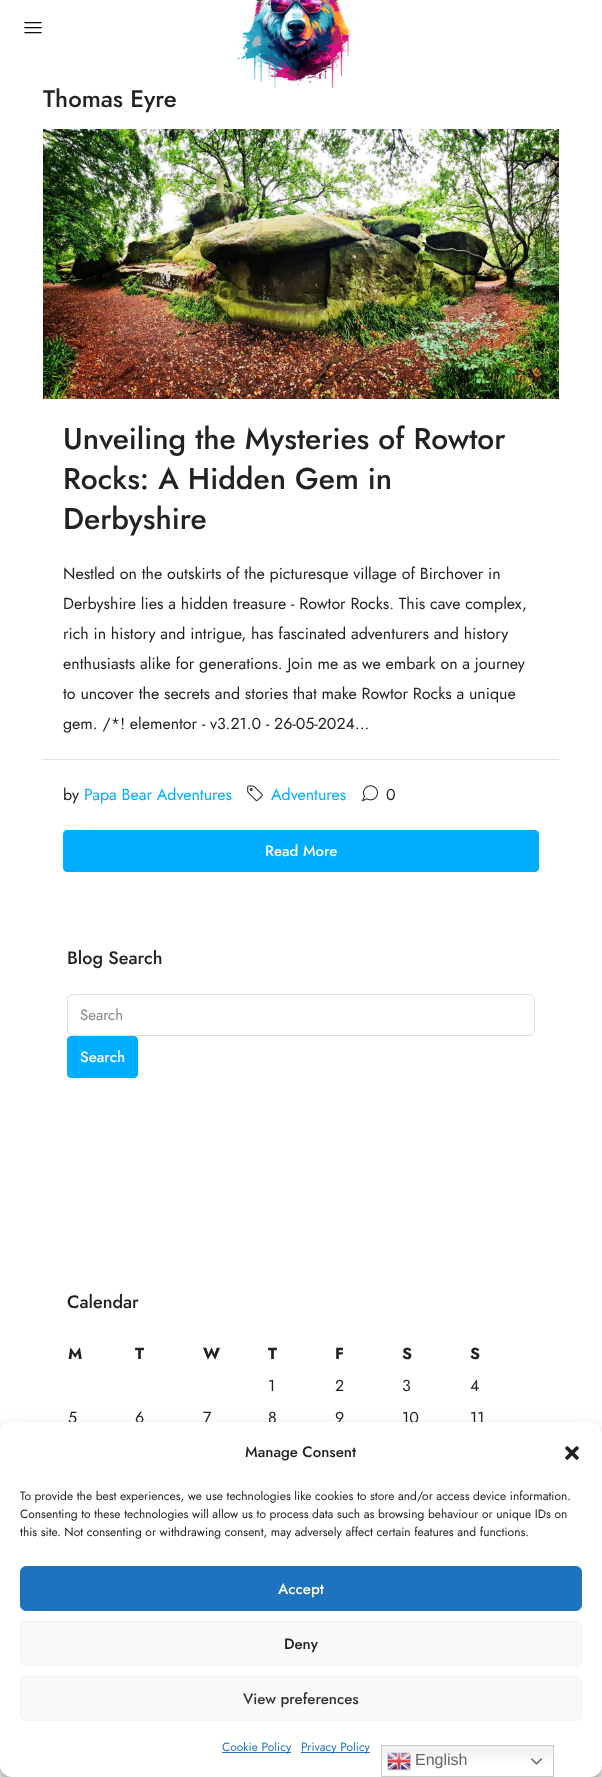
<svg xmlns="http://www.w3.org/2000/svg" width="602" height="1777" viewBox="0 0 602 1777">
  <defs>
    <linearGradient id="g1" gradientUnits="userSpaceOnUse" x1="468" y1="1745" x2="468" y2="1777"><stop offset="0" stop-color="rgb(239,239,239)"/><stop offset="0.7" stop-color="rgb(255,255,255)"/></linearGradient>
  </defs>
  <rect width="100%" height="100%" fill="rgb(255,255,255)"/>
  <image x="24" y="22" width="18" height="12" href="pic1.png"/>
  <image x="237" y="0" width="119" height="88" href="pic2.png"/>
  <text x="43" y="107" font-family="Jost" font-size="24" font-weight="500" fill="rgb(34,34,34)">Thomas Eyre</text>
  <image x="43" y="129" width="516" height="270" href="pic3.png"/>
  <g font-family="Jost" font-size="30" font-weight="500" fill="rgb(34,34,34)">
    <text>
      <tspan x="63" y="449">Unveiling the Mysteries of Rowtor</tspan>
      <tspan x="63" y="489">Rocks: A Hidden Gem in</tspan>
      <tspan x="63" y="529">Derbyshire</tspan>
    </text>
  </g>
  <g font-family="Jost" font-size="16" fill="rgb(34,34,34)">
    <text>
      <tspan x="63" y="579">Nestled on the outskirts of the picturesque village of Birchover in</tspan>
      <tspan x="63" y="609">Derbyshire lies a hidden treasure - Rowtor Rocks. This cave complex,</tspan>
      <tspan x="63" y="639">rich in history and intrigue, has fascinated adventurers and history</tspan>
      <tspan x="63" y="669">enthusiasts alike for generations. Join me as we embark on a journey</tspan>
      <tspan x="63" y="699">to uncover the secrets and stories that make Rowtor Rocks a unique</tspan>
      <tspan x="63" y="729">gem. /*! elementor - v3.21.0 - 26-05-2024...</tspan>
    </text>
  </g>
  <rect x="43" y="759" width="516" height="1" fill="rgb(222,226,230)"/>
  <text x="63" y="800" font-family="Jost" font-size="16" fill="rgb(34,34,34)">by</text>
  <text x="84" y="800" font-family="Jost" font-size="16" fill="rgb(0,174,255)">Papa Bear Adventures</text>
  <image x="247" y="785" width="16" height="17" href="pic4.png"/>
  <text x="271" y="800" font-family="Jost" font-size="16" fill="rgb(0,174,255)">Adventures</text>
  <image x="362" y="785" width="16" height="17" href="pic5.png"/>
  <text x="386" y="800" font-family="Jost" font-size="16" fill="rgb(34,34,34)">0</text>
  <rect x="63.5" y="830.5" width="475" height="41" rx="3.5" fill="rgb(0,174,255)" stroke="rgb(0,174,255)"/>
  <text x="265" y="856" font-family="Jost" font-size="15" font-weight="500" fill="rgb(255,255,255)">Read More</text>
  <text x="67" y="964" font-family="Jost" font-size="18" font-weight="500" fill="rgb(34,34,34)">Blog Search</text>
  <rect x="67.5" y="994.5" width="467" height="41" rx="5.5" fill="none" stroke="rgb(220,224,224)"/>
  <text x="80" y="1020" font-family="Jost" font-size="15" fill="rgb(130,135,137)">Search</text>
  <rect x="67.5" y="1036.5" width="70" height="41" rx="3.5" fill="rgb(0,174,255)" stroke="rgb(0,174,255)"/>
  <text x="80" y="1062" font-family="Jost" font-size="15" font-weight="500" fill="rgb(255,255,255)">Search</text>
  <text x="67" y="1308" font-family="Jost" font-size="18" font-weight="500" fill="rgb(34,34,34)">Calendar</text>
  <g font-family="Jost" font-size="16" font-weight="bold" fill="rgb(34,34,34)">
    <text x="68" y="1359">M</text>
    <text x="135" y="1359">T</text>
    <text x="203" y="1359">W</text>
    <text x="268" y="1359">T</text>
    <text x="335" y="1359">F</text>
    <text x="402" y="1359">S</text>
    <text x="470" y="1359">S</text>
  </g>
  <g font-family="Jost" font-size="16" fill="rgb(34,34,34)">
    <text x="268" y="1391">1</text>
    <text x="335" y="1391">2</text>
    <text x="402" y="1391">3</text>
    <text x="470" y="1391">4</text>
    <text x="68" y="1423">5</text>
    <text x="135" y="1423">6</text>
    <text x="203" y="1423">7</text>
    <text x="268" y="1423">8</text>
    <text x="335" y="1423">9</text>
    <text x="402" y="1423">10</text>
    <text x="470" y="1423">11</text>
  </g>
  <rect x="0" y="1428" width="602" height="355" rx="12" fill="rgba(0,0,0,0.23)" filter="blur(3px)"/>
  <rect x="0" y="1432" width="602" height="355" rx="12" fill="rgba(0,0,0,0.19)" filter="blur(10px)"/>
  <rect x="0" y="1422" width="602" height="355" rx="12" fill="rgb(255,255,255)"/>
  <text x="245" y="1457" font-family="Jost" font-size="15" font-weight="500" fill="rgb(34,34,34)">Manage Consent</text>
  <image x="565" y="1446" width="14" height="14" href="pic6.png"/>
  <g font-family="Jost" font-size="12" fill="rgb(34,34,34)">
    <text>
      <tspan x="20" y="1500">To provide the best experiences, we use technologies like cookies to store and/or access device information.</tspan>
      <tspan x="20" y="1518">Consenting to these technologies will allow us to process data such as browsing behaviour or unique IDs on</tspan>
      <tspan x="20" y="1536">this site. Not consenting or withdrawing consent, may adversely affect certain features and functions.</tspan>
    </text>
  </g>
  <rect x="20.5" y="1566.5" width="561" height="44" rx="5.5" fill="rgb(30,115,190)" stroke="rgb(30,115,190)"/>
  <text x="278" y="1594" font-family="Jost" font-size="15" font-weight="500" fill="rgb(255,255,255)">Accept</text>
  <rect x="20.5" y="1621.5" width="561" height="44" rx="5.5" fill="rgb(249,249,249)" stroke="rgb(242,242,242)"/>
  <text x="284" y="1649" font-family="Jost" font-size="15" font-weight="500" fill="rgb(34,34,34)">Deny</text>
  <rect x="20.5" y="1676.5" width="561" height="44" rx="5.5" fill="rgb(249,249,249)" stroke="rgb(242,242,242)"/>
  <text x="243" y="1704" font-family="Jost" font-size="15" font-weight="500" fill="rgb(51,51,51)">View preferences</text>
  <rect x="222" y="1752" width="69" height="1" fill="rgb(30,115,190)"/>
  <text x="222" y="1751" font-family="Jost" font-size="12" fill="rgb(30,115,190)">Cookie Policy</text>
  <rect x="301" y="1752" width="69" height="1" fill="rgb(30,115,190)"/>
  <text x="301" y="1751" font-family="Jost" font-size="12" fill="rgb(30,115,190)">Privacy Policy</text>
  <rect x="382" y="1746" width="171" height="18" fill="url(#g1)"/>
  <rect x="381.5" y="1745.5" width="172" height="31" fill="none" stroke="rgb(204,204,204)"/>
  <image x="387" y="1752" width="24" height="19" href="pic7.png"/>
  <text x="415" y="1765" font-family="Liberation Sans" font-size="16" fill="rgb(102,102,102)">English</text>
  <image x="531" y="1758" width="11" height="7" href="pic8.png"/>
</svg>
